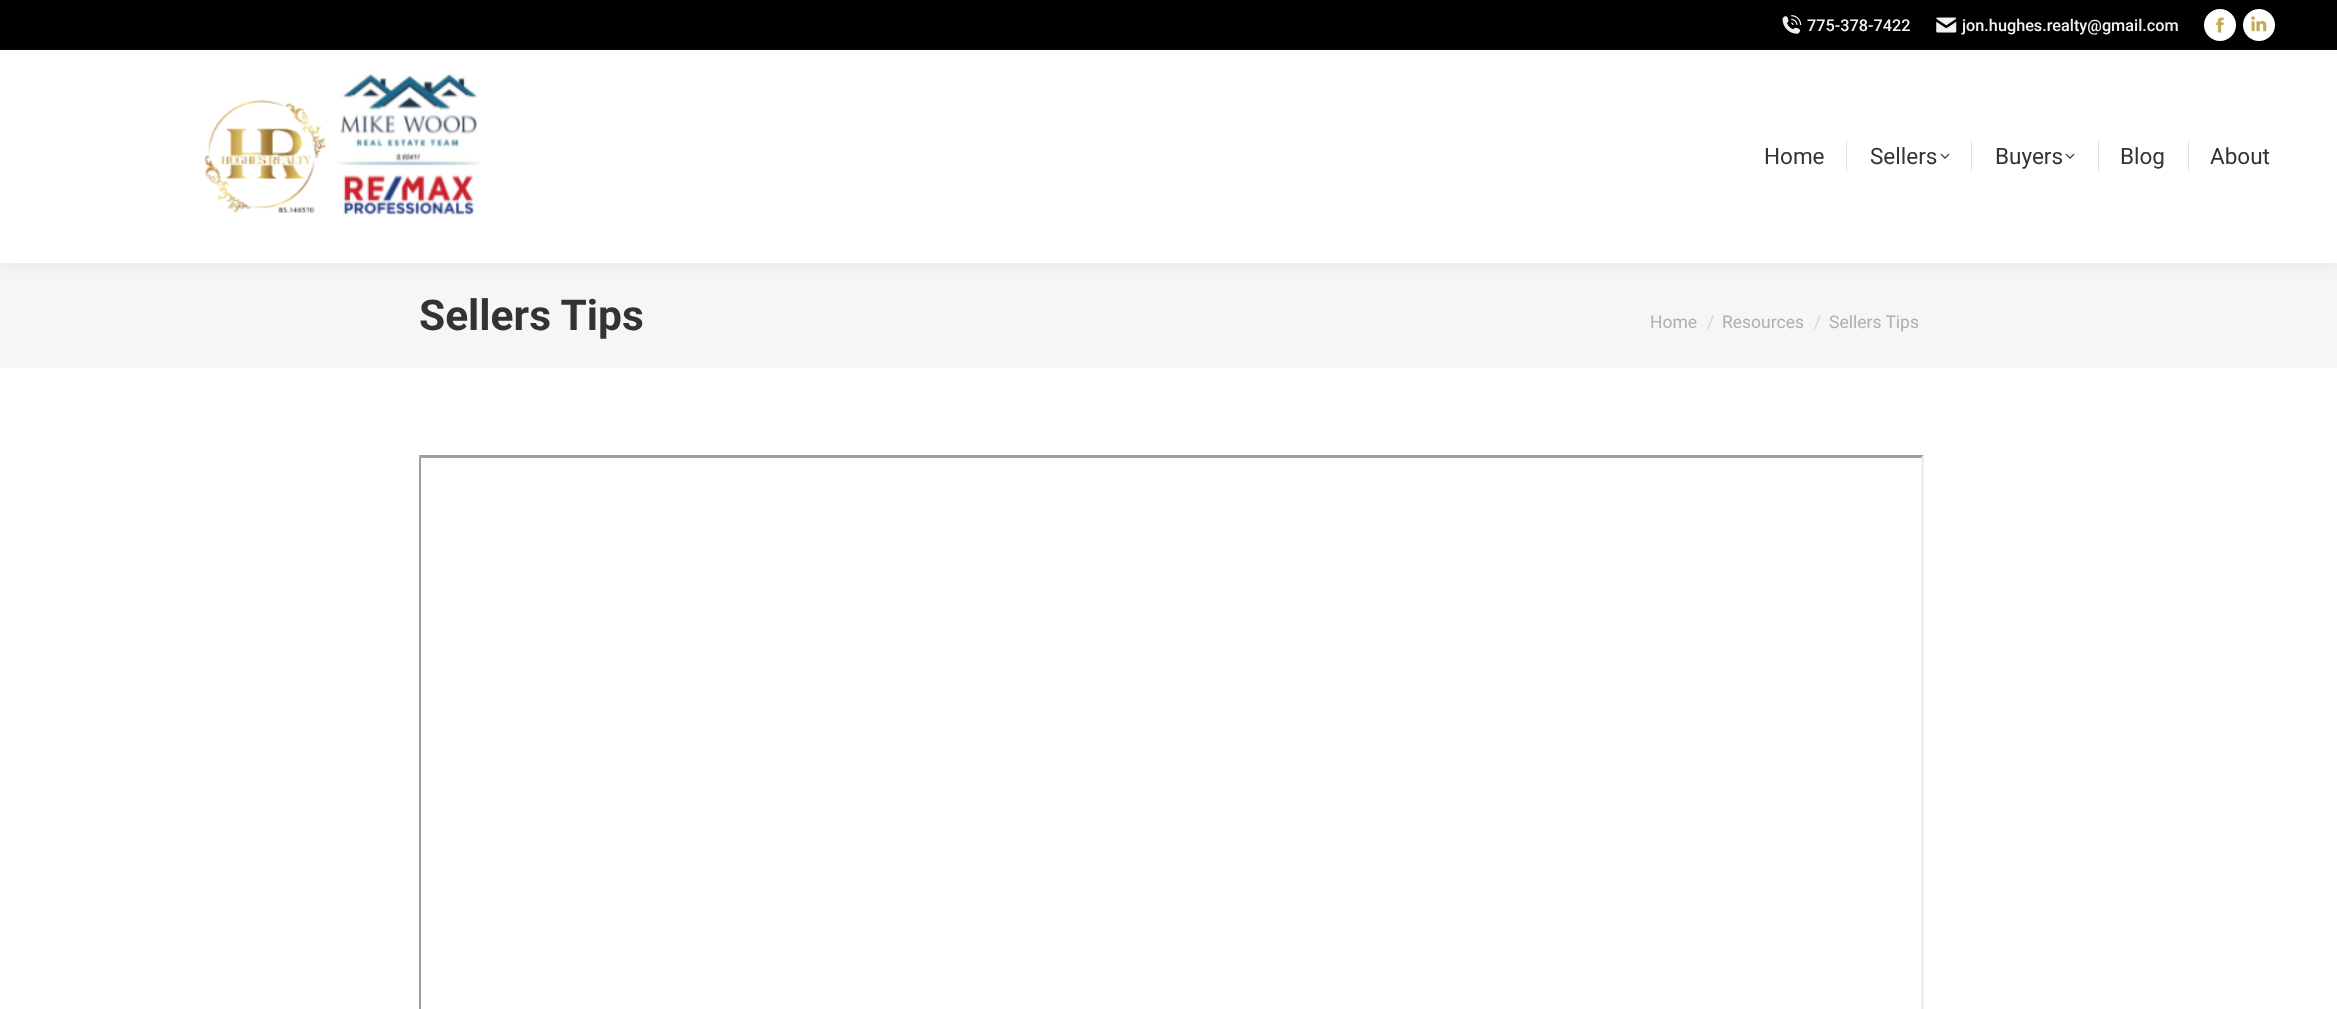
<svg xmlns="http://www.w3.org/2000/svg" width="2337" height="1009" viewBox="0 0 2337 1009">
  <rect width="100%" height="100%" fill="rgb(255,255,255)"/>
  <rect x="0" y="263" width="2337" height="105" fill="rgb(246,246,246)"/>
  <rect x="-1" y="-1" width="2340" height="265" fill="rgba(0,0,0,0.07)" filter="blur(9.5px)"/>
  <rect x="0" y="50" width="2337" height="213" fill="rgb(255,255,255)"/>
  <rect x="0" y="0" width="2337" height="49" fill="rgb(0,0,0)"/>
  <image x="1782" y="15" width="20" height="19" href="pic1.png"/>
  <text x="1807" y="31" font-family="Roboto" font-size="16.25" font-weight="500" fill="rgb(242,242,242)">775-378-7422</text>
  <image x="1936" y="17" width="21" height="16" href="pic2.png"/>
  <text x="1962" y="31" font-family="Roboto" font-size="16.25" font-weight="500" fill="rgb(242,242,242)">jon.hughes.realty@gmail.com</text>
  <circle cx="2220" cy="25" r="16" fill="rgb(255,255,255)"/>
  <image x="2216" y="17" width="8" height="16" href="pic3.png"/>
  <circle cx="2259" cy="25" r="16" fill="rgb(255,255,255)"/>
  <image x="2251" y="16" width="16" height="16" href="pic4.png"/>
  <rect x="0" y="49" width="2337" height="1" fill="rgb(6,6,6)"/>
  <image x="204" y="73" width="276" height="143" href="pic5.png"/>
  <text x="1764" y="164" font-family="Roboto" font-size="22.5" fill="rgb(51,51,51)">Home</text>
  <rect x="1846" y="141" width="1" height="30" fill="rgb(222,222,222)"/>
  <text x="1870" y="164" font-family="Roboto" font-size="22.5" fill="rgb(51,51,51)">Sellers</text>
  <image x="1940" y="153" width="10" height="6" href="pic6.png"/>
  <rect x="1971" y="141" width="1" height="30" fill="rgb(222,222,222)"/>
  <text x="1995" y="164" font-family="Roboto" font-size="22.5" fill="rgb(51,51,51)">Buyers</text>
  <image x="2065" y="153" width="10" height="6" href="pic6.png"/>
  <rect x="2098" y="141" width="1" height="30" fill="rgb(222,222,222)"/>
  <text x="2120" y="164" font-family="Roboto" font-size="22.5" fill="rgb(51,51,51)">Blog</text>
  <rect x="2188" y="141" width="1" height="30" fill="rgb(222,222,222)"/>
  <text x="2210" y="164" font-family="Roboto" font-size="22.5" fill="rgb(51,51,51)">About</text>
  <image x="185" y="340" width="1" height="1" href="pic7.png"/>
  <text x="419" y="330" font-family="Roboto" font-size="42.5" font-weight="bold" fill="rgb(51,51,51)">Sellers Tips</text>
  <text x="1650" y="328" font-family="Roboto" font-size="17.5" fill="rgb(173,175,179)">Home</text>
  <text x="1707" y="328" font-family="Roboto" font-size="17.5" fill="rgb(210,211,213)">/</text>
  <text x="1722" y="328" font-family="Roboto" font-size="17.5" fill="rgb(173,175,179)">Resources</text>
  <text x="1814" y="328" font-family="Roboto" font-size="17.5" fill="rgb(210,211,213)">/</text>
  <text x="1829" y="328" font-family="Roboto" font-size="17.5" fill="rgb(173,175,179)">Sellers Tips</text>
  <path d="M419 455H1924L1921 458H421Z" fill="rgb(159,159,159)"/>
  <path d="M419 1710V455L421 458V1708Z" fill="rgb(159,159,159)"/>
  <path d="M1924 455V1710L1921 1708V458Z" fill="rgb(238,238,238)"/>
</svg>
